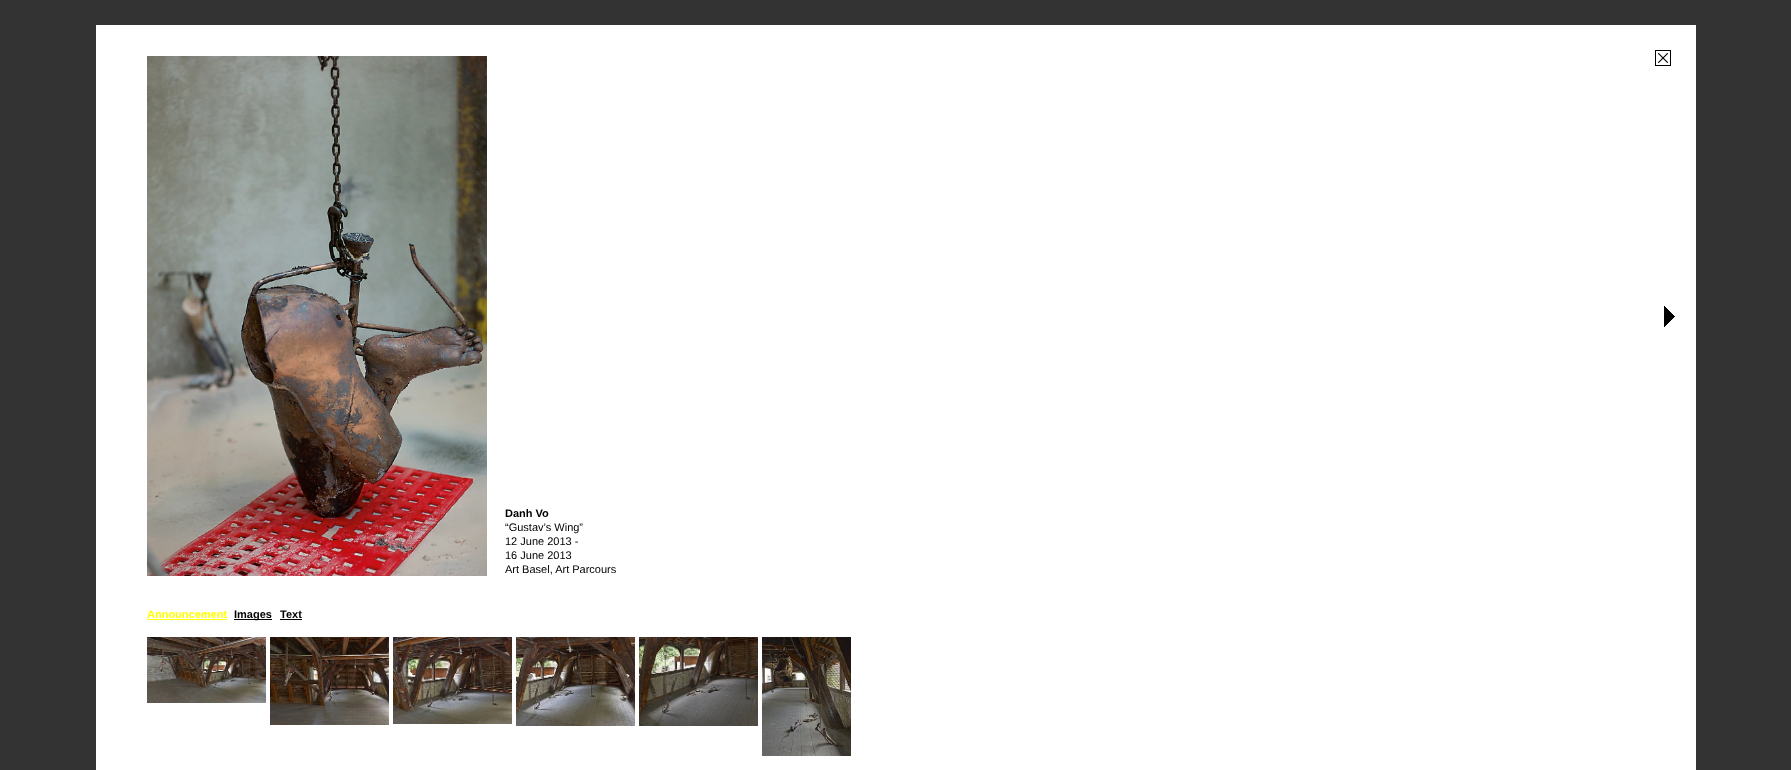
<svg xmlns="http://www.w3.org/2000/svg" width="1791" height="770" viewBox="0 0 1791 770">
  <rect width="100%" height="100%" fill="rgb(51,51,51)"/>
  <rect x="96.5" y="25.5" width="1599" height="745" fill="none" stroke="rgb(255,255,255)"/>
  <rect x="97" y="26" width="1598" height="744" fill="rgb(255,255,255)"/>
  <image x="1655" y="50" width="16" height="16" href="pic1.png"/>
  <image x="147" y="56" width="340" height="520" href="pic2.png"/>
  <image x="1664" y="306" width="11" height="21" href="pic3.png"/>
  <text x="505" y="517" font-family="Liberation Sans" font-size="11" font-weight="bold" fill="rgb(0,0,0)">Danh Vo</text>
  <g font-family="Liberation Sans" font-size="11" fill="rgb(0,0,0)">
    <text>
      <tspan x="505" y="531">“Gustav’s Wing”</tspan>
      <tspan x="505" y="545">12 June 2013 -</tspan>
      <tspan x="505" y="559">16 June 2013</tspan>
      <tspan x="505" y="573">Art Basel, Art Parcours</tspan>
    </text>
  </g>
  <text x="147" y="618" font-family="Liberation Sans" font-size="11" font-weight="bold" fill="rgb(255,255,0)">Announcement</text>
  <rect x="147" y="619" width="80" height="1" fill="rgb(255,255,0)"/>
  <rect x="234" y="619" width="38" height="1" fill="rgb(0,0,0)"/>
  <g font-family="Liberation Sans" font-size="11" font-weight="bold" fill="rgb(0,0,0)">
    <text x="234" y="618">Images</text>
    <text x="280" y="618">Text</text>
  </g>
  <rect x="280" y="619" width="22" height="1" fill="rgb(0,0,0)"/>
  <image x="147" y="637" width="119" height="66" href="pic4.png"/>
  <image x="270" y="637" width="119" height="88" href="pic5.png"/>
  <image x="393" y="637" width="119" height="87" href="pic6.png"/>
  <image x="516" y="637" width="119" height="89" href="pic7.png"/>
  <image x="639" y="637" width="119" height="89" href="pic8.png"/>
  <image x="762" y="637" width="89" height="119" href="pic9.png"/>
</svg>
